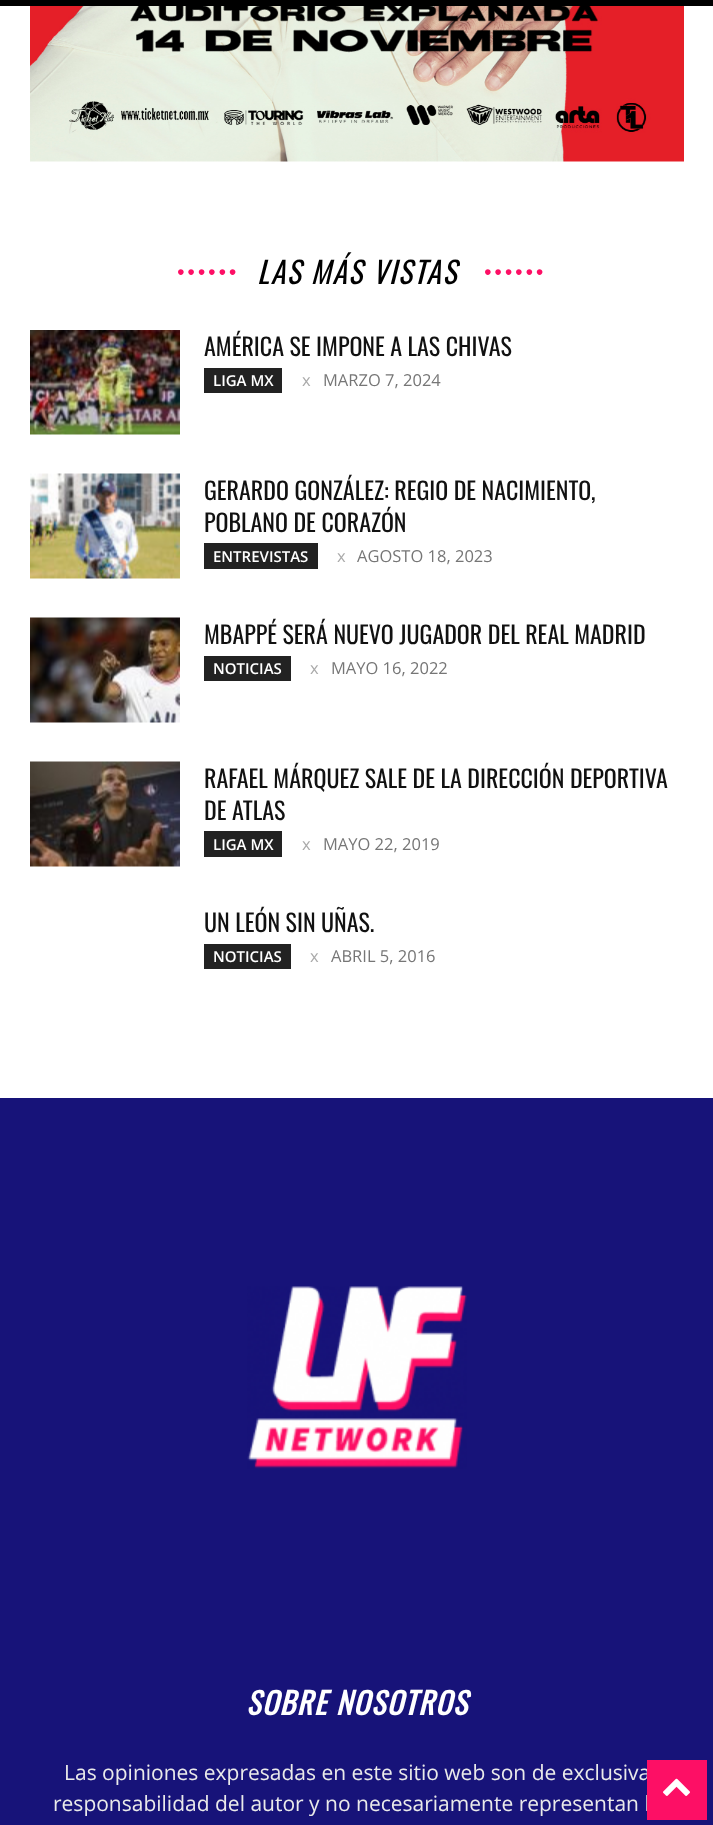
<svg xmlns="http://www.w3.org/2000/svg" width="713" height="1825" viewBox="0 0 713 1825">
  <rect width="100%" height="100%" fill="rgb(255,255,255)"/>
  <rect x="0" y="0" width="713" height="6" fill="rgb(0,0,0)"/>
  <image x="30" y="6" width="654" height="156" href="pic1.png"/>
  <text x="177" y="279" font-family="Liberation Sans" font-size="21" font-style="italic" letter-spacing="3" fill="rgb(253,15,101)">••••••</text>
  <text x="257" y="284" font-family="Oswald" font-size="30" font-style="italic" letter-spacing="1.5" fill="rgb(0,0,0)">LAS MÁS VISTAS</text>
  <text x="484" y="279" font-family="Liberation Sans" font-size="21" font-style="italic" letter-spacing="3" fill="rgb(253,15,101)">••••••</text>
  <image x="30" y="330" width="150" height="105" href="pic2.png"/>
  <text x="204" y="356" font-family="Oswald" font-size="24" fill="rgb(17,17,17)">AMÉRICA SE IMPONE A LAS CHIVAS</text>
  <rect x="204" y="368" width="78" height="25" fill="rgb(34,34,34)"/>
  <text x="213" y="386" font-family="Open Sans" font-size="15" font-weight="600" fill="rgb(255,255,255)">LIGA MX</text>
  <text x="302" y="386" font-family="Open Sans" font-size="16.5" fill="rgb(170,170,170)">x</text>
  <text x="323" y="386" font-family="Open Sans" font-size="16.5" fill="rgb(118,118,118)">MARZO 7, 2024</text>
  <image x="30" y="473" width="150" height="106" href="pic3.png"/>
  <g font-family="Oswald" font-size="24" fill="rgb(17,17,17)">
    <text>
      <tspan x="204" y="500">GERARDO GONZÁLEZ: REGIO DE NACIMIENTO,</tspan>
      <tspan x="204" y="532">POBLANO DE CORAZÓN</tspan>
    </text>
  </g>
  <rect x="204" y="543" width="114" height="26" fill="rgb(34,34,34)"/>
  <text x="213" y="562" font-family="Open Sans" font-size="15" font-weight="600" fill="rgb(255,255,255)">ENTREVISTAS</text>
  <text x="337" y="562" font-family="Open Sans" font-size="16.5" fill="rgb(170,170,170)">x</text>
  <text x="357" y="562" font-family="Open Sans" font-size="16.5" fill="rgb(118,118,118)">AGOSTO 18, 2023</text>
  <image x="30" y="617" width="150" height="106" href="pic4.png"/>
  <text x="204" y="644" font-family="Oswald" font-size="24" fill="rgb(17,17,17)">MBAPPÉ SERÁ NUEVO JUGADOR DEL REAL MADRID</text>
  <rect x="204" y="656" width="87" height="25" fill="rgb(34,34,34)"/>
  <text x="213" y="674" font-family="Open Sans" font-size="15" font-weight="600" fill="rgb(255,255,255)">NOTICIAS</text>
  <text x="310" y="674" font-family="Open Sans" font-size="16.5" fill="rgb(170,170,170)">x</text>
  <text x="331" y="674" font-family="Open Sans" font-size="16.5" fill="rgb(118,118,118)">MAYO 16, 2022</text>
  <image x="30" y="761" width="150" height="106" href="pic5.png"/>
  <g font-family="Oswald" font-size="24" fill="rgb(17,17,17)">
    <text>
      <tspan x="204" y="788">RAFAEL MÁRQUEZ SALE DE LA DIRECCIÓN DEPORTIVA</tspan>
      <tspan x="204" y="820">DE ATLAS</tspan>
    </text>
  </g>
  <rect x="204" y="831" width="78" height="26" fill="rgb(34,34,34)"/>
  <text x="213" y="850" font-family="Open Sans" font-size="15" font-weight="600" fill="rgb(255,255,255)">LIGA MX</text>
  <text x="302" y="850" font-family="Open Sans" font-size="16.5" fill="rgb(170,170,170)">x</text>
  <text x="323" y="850" font-family="Open Sans" font-size="16.5" fill="rgb(118,118,118)">MAYO 22, 2019</text>
  <text x="204" y="932" font-family="Oswald" font-size="24" fill="rgb(17,17,17)">UN LEÓN SIN UÑAS.</text>
  <rect x="204" y="944" width="87" height="25" fill="rgb(34,34,34)"/>
  <text x="213" y="962" font-family="Open Sans" font-size="15" font-weight="600" fill="rgb(255,255,255)">NOTICIAS</text>
  <text x="310" y="962" font-family="Open Sans" font-size="16.5" fill="rgb(170,170,170)">x</text>
  <text x="331" y="962" font-family="Open Sans" font-size="16.5" fill="rgb(118,118,118)">ABRIL 5, 2016</text>
  <rect x="0" y="1098" width="713" height="727" fill="rgb(23,19,121)"/>
  <image x="247" y="1286" width="220" height="183" href="pic6.png"/>
  <text x="246" y="1715" font-family="Oswald" font-size="30" font-weight="bold" font-style="italic" letter-spacing="1.5" fill="rgb(255,255,255)">SOBRE NOSOTROS</text>
  <g font-family="Open Sans" font-size="21" fill="rgb(234,234,234)">
    <text x="64" y="1780">Las opiniones expresadas en este sitio web son de exclusiva</text>
    <text x="53" y="1811">responsabilidad del autor y no necesariamente representan l</text>
  </g>
  <rect x="647" y="1760" width="60" height="60" fill="rgb(253,15,101)"/>
  <image x="663" y="1778" width="27" height="18" href="pic7.png"/>
</svg>
